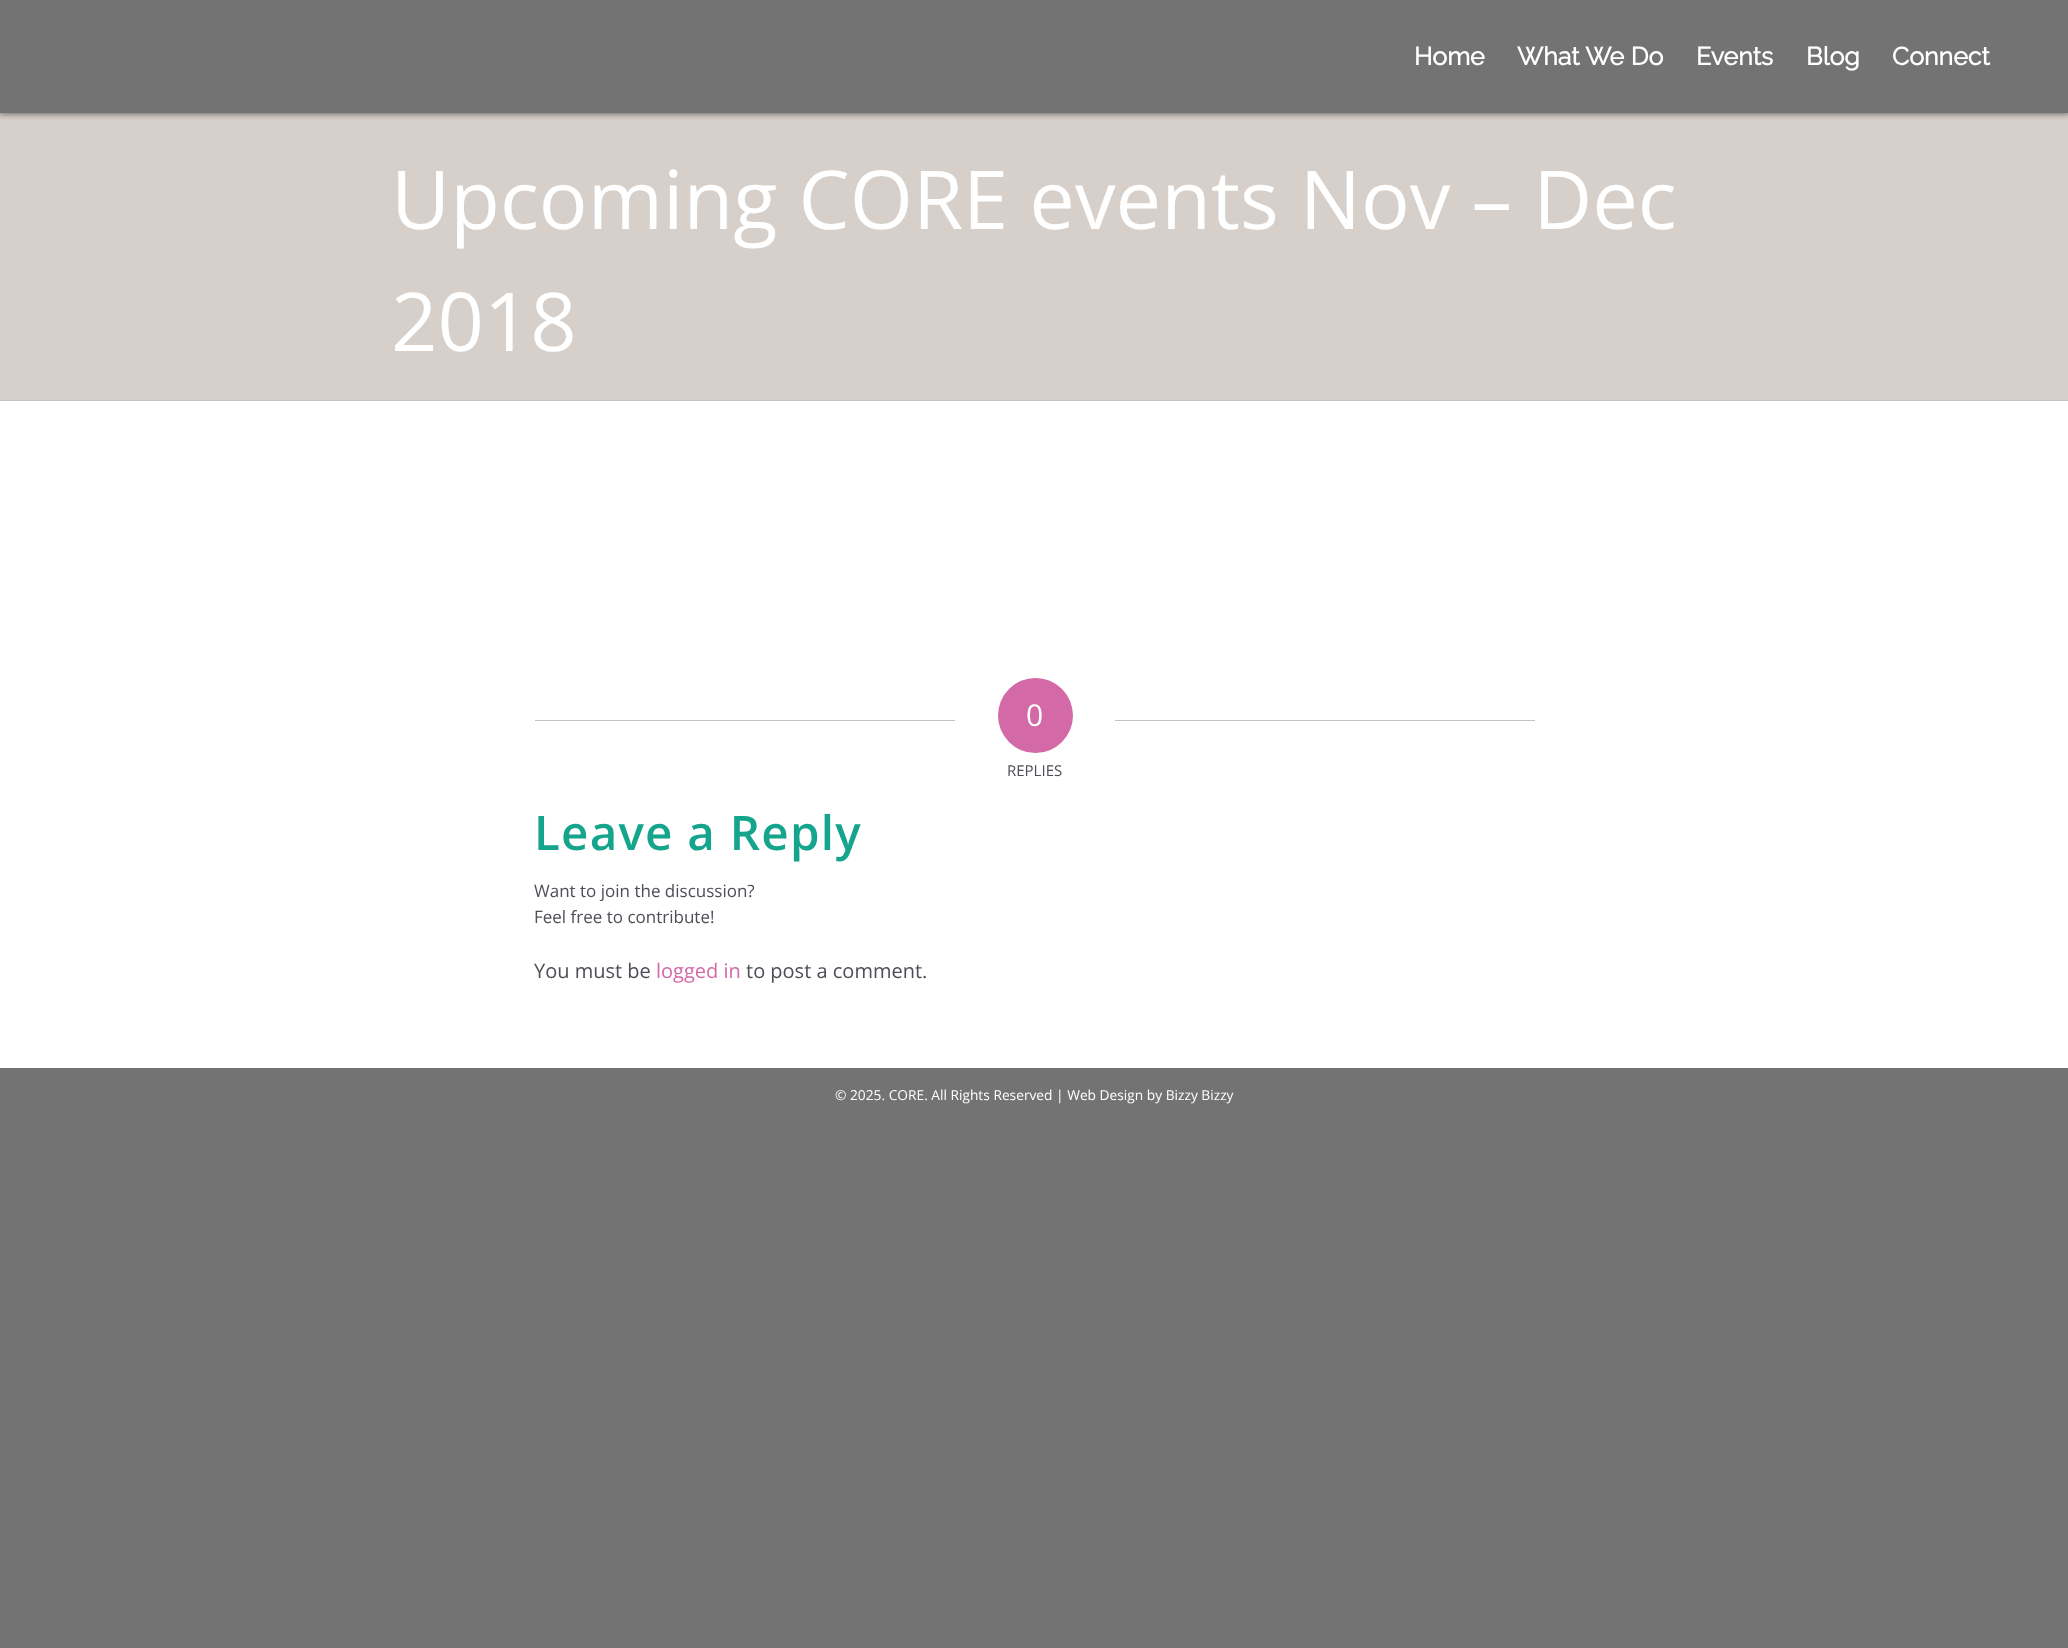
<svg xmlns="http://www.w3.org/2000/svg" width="2068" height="1648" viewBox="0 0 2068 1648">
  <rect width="100%" height="100%" fill="rgb(115,115,115)"/>
  <rect x="0" y="113" width="2068" height="287" fill="rgb(215,208,202)"/>
  <rect x="-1" y="-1" width="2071" height="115" fill="rgba(0,0,0,0.5)" filter="blur(3px)"/>
  <rect x="0" y="0" width="2068" height="113" fill="rgb(115,115,115)"/>
  <g font-family="Raleway" font-size="25" font-weight="bold" fill="rgb(255,255,255)">
    <text x="1414" y="65">Home</text>
    <text x="1517" y="65">What We Do</text>
    <text x="1696" y="65">Events</text>
    <text x="1806" y="65">Blog</text>
    <text x="1892" y="65">Connect</text>
  </g>
  <g font-family="Open Sans" font-size="81.25" fill="rgb(255,255,255)">
    <text>
      <tspan x="391" y="229">Upcoming CORE events Nov – Dec</tspan>
      <tspan x="391" y="351">2018</tspan>
    </text>
  </g>
  <rect x="0" y="401" width="2068" height="667" fill="rgb(255,255,255)"/>
  <rect x="0" y="400" width="2068" height="1" fill="rgb(194,194,194)"/>
  <rect x="535" y="720" width="420" height="1" fill="rgb(194,194,194)"/>
  <circle cx="1035.5" cy="715.5" r="37.5" fill="rgb(211,105,167)"/>
  <text x="1026" y="726" font-family="Open Sans" font-size="30" fill="rgb(255,255,255)">0</text>
  <rect x="1115" y="720" width="420" height="1" fill="rgb(194,194,194)"/>
  <text x="1007" y="776" font-family="Open Sans" font-size="15" fill="rgb(77,78,87)">REPLIES</text>
  <text x="534" y="850" font-family="Open Sans" font-size="47.5" font-weight="600" letter-spacing="1.25" fill="rgb(21,164,140)">Leave a Reply</text>
  <g font-family="Open Sans" font-size="17" fill="rgb(77,78,87)">
    <text>
      <tspan x="534" y="897">Want to join the discussion?</tspan>
      <tspan x="534" y="923">Feel free to contribute!</tspan>
    </text>
  </g>
  <text x="534" y="978" font-family="Open Sans" font-size="20" fill="rgb(77,78,87)">You must be</text>
  <text x="656" y="978" font-family="Open Sans" font-size="20" fill="rgb(211,105,167)">logged in</text>
  <text x="746" y="978" font-family="Open Sans" font-size="20" fill="rgb(77,78,87)">to post a comment.</text>
  <text x="835" y="1100" font-family="Open Sans" font-size="13.75" fill="rgb(255,255,255)">© 2025. CORE. All Rights Reserved | Web Design by Bizzy Bizzy</text>
</svg>
